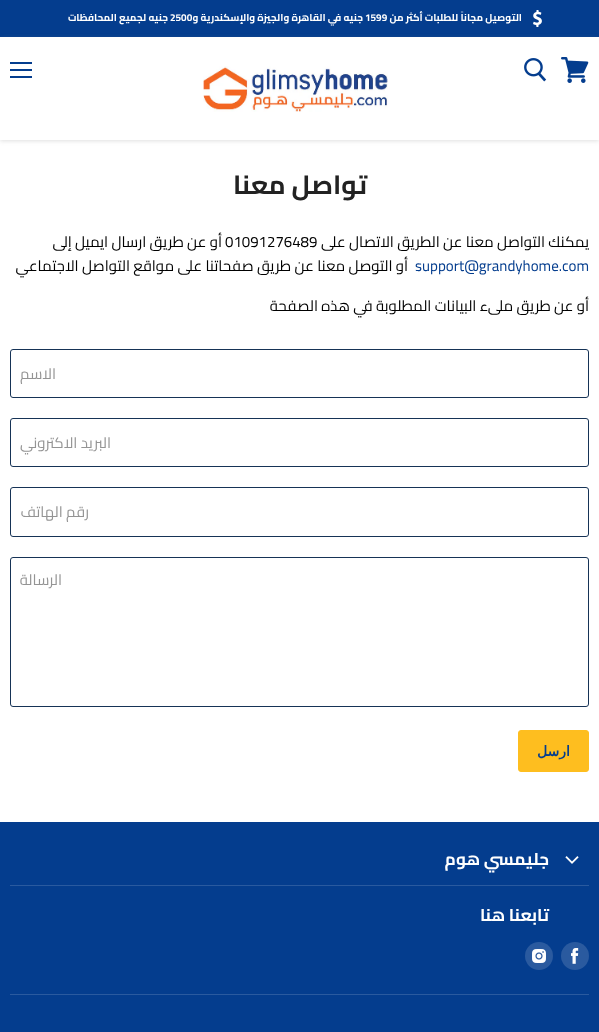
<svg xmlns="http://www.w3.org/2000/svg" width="599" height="1032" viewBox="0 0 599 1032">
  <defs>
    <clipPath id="clip1"><path d="M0 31H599V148H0ZM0 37H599V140H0Z" clip-rule="evenodd"/></clipPath>
  </defs>
  <rect width="100%" height="100%" fill="rgb(255,255,255)"/>
  <rect x="0" y="0" width="599" height="37" fill="rgb(4,61,142)"/>
  <image x="533" y="10" width="9" height="17" href="pic1.png"/>
  <text x="522" y="21" font-family="Cairo" font-size="10" font-weight="bold" direction="rtl" fill="rgb(255,255,255)">التوصيل مجاناً للطلبات أكثر من</text>
  <g font-family="Cairo" font-size="10" font-weight="bold" fill="rgb(255,255,255)">
    <text x="365" y="21">1599</text>
    <text x="170" y="21">2500</text>
  </g>
  <g font-family="Cairo" font-size="10" font-weight="bold" direction="rtl" fill="rgb(255,255,255)">
    <text x="363" y="21">جنيه في القاهرة والجيزة والإسكندرية و</text>
    <text x="168" y="21">جنيه لجميع المحافظات</text>
  </g>
  <g clip-path="url(#clip1)">
    <rect x="0" y="38" width="599" height="103" fill="rgba(127,127,127,0.25)" filter="blur(2px)"/>
  </g>
  <image x="561" y="57" width="28" height="26" href="pic2.png"/>
  <image x="524" y="58" width="23" height="24" href="pic3.png"/>
  <image x="203" y="66" width="185" height="46" href="pic4.png"/>
  <rect x="10" y="62" width="22" height="2" fill="rgb(4,61,142)"/>
  <rect x="10" y="69" width="22" height="2" fill="rgb(4,61,142)"/>
  <rect x="10" y="76" width="22" height="2" fill="rgb(4,61,142)"/>
  <text x="367" y="194" font-family="Cairo" font-size="26.25" font-weight="bold" direction="rtl" fill="rgb(34,34,34)">تواصل معنا</text>
  <text x="589" y="247" font-family="Cairo" font-size="15" direction="rtl" fill="rgb(0,0,0)">يمكنك التواصل معنا عن الطريق الاتصال على</text>
  <text x="225" y="247" font-family="Cairo" font-size="15" fill="rgb(0,0,0)">01091276489</text>
  <text x="222" y="247" font-family="Cairo" font-size="15" direction="rtl" fill="rgb(0,0,0)">أو عن طريق ارسال ايميل إلى</text>
  <text x="415" y="271" font-family="Cairo" font-size="15" fill="rgb(4,61,142)">support@grandyhome.com</text>
  <g font-family="Cairo" font-size="15" direction="rtl" fill="rgb(0,0,0)">
    <text x="408" y="271">أو التوصل معنا عن طريق صفحاتنا على مواقع التواصل الاجتماعي</text>
    <text x="589" y="311">أو عن طريق ملىء البيانات المطلوبة في هذه الصفحة</text>
  </g>
  <rect x="10.5" y="349.5" width="578" height="48" rx="2.5" fill="none" stroke="rgb(22,51,86)"/>
  <text x="56" y="379" font-family="Cairo" font-size="15" direction="rtl" fill="rgb(148,148,148)">الاسم</text>
  <rect x="10.5" y="418.5" width="578" height="48" rx="2.5" fill="none" stroke="rgb(22,51,86)"/>
  <text x="111" y="448" font-family="Cairo" font-size="15" direction="rtl" fill="rgb(148,148,148)">البريد الاكتروني</text>
  <rect x="10.5" y="487.5" width="578" height="49" rx="2.5" fill="none" stroke="rgb(22,51,86)"/>
  <text x="89" y="517" font-family="Cairo" font-size="15" direction="rtl" fill="rgb(148,148,148)">رقم الهاتف</text>
  <rect x="10.5" y="557.5" width="578" height="149" rx="2.5" fill="none" stroke="rgb(22,51,86)"/>
  <text x="62" y="585" font-family="Cairo" font-size="15" direction="rtl" fill="rgb(148,148,148)">الرسالة</text>
  <rect x="518.5" y="730.5" width="70" height="41" rx="2.5" fill="rgb(254,190,31)" stroke="rgb(254,190,31)"/>
  <text x="570" y="756" font-family="DejaVu Sans" font-size="14" font-weight="bold" direction="rtl" fill="rgb(4,61,142)">ارسل</text>
  <rect x="0" y="822" width="599" height="210" fill="rgb(4,61,142)"/>
  <rect x="10" y="885" width="579" height="1" fill="rgb(42,90,159)"/>
  <image x="565" y="856" width="14" height="8" href="pic5.png"/>
  <text x="549" y="865" font-family="Cairo" font-size="17" font-weight="bold" direction="rtl" fill="rgb(255,255,255)">جليمسي هوم</text>
  <rect x="10" y="994" width="579" height="1" fill="rgb(42,90,159)"/>
  <text x="549" y="921" font-family="Cairo" font-size="17" font-weight="bold" direction="rtl" fill="rgb(255,255,255)">تابعنا هنا</text>
  <circle cx="575" cy="956" r="14" fill="rgb(42,90,159)"/>
  <image x="571" y="948" width="8" height="16" href="pic6.png"/>
  <circle cx="539" cy="956" r="14" fill="rgb(42,90,159)"/>
  <image x="532" y="949" width="14" height="14" href="pic7.png"/>
</svg>
